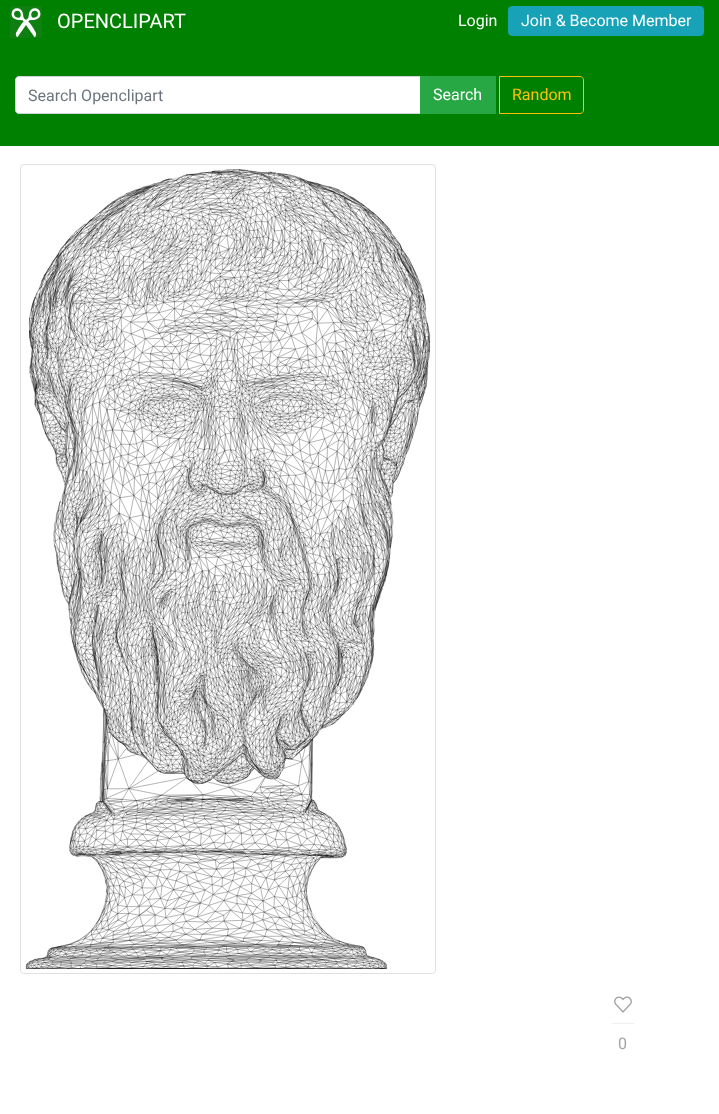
<svg xmlns="http://www.w3.org/2000/svg" width="719" height="1114" viewBox="0 0 719 1114">
  <rect width="100%" height="100%" fill="rgb(255,255,255)"/>
  <rect x="0" y="0" width="719" height="146" fill="rgb(0,128,0)"/>
  <image x="10" y="6" width="32" height="32" href="pic1.png"/>
  <text x="57" y="28" font-family="Roboto" font-size="20" fill="rgb(255,255,255)">OPENCLIPART</text>
  <text x="458" y="26" font-family="Roboto" font-size="16" fill="rgb(255,255,255)">Login</text>
  <rect x="508.5" y="6.5" width="195" height="29" rx="3.5" fill="rgb(23,162,184)" stroke="rgb(23,162,184)"/>
  <text x="521" y="26" font-family="Roboto" font-size="16" fill="rgb(255,255,255)">Join &amp; Become Member</text>
  <path d="M19 76.5H420.5V113.5H19C17 113.5 15.5 112 15.5 110V80C15.5 78 17 76.5 19 76.5Z" fill="rgb(255,255,255)" stroke="rgb(206,212,218)"/>
  <text x="28" y="101" font-family="Roboto" font-size="16" fill="rgb(108,117,125)">Search Openclipart</text>
  <rect x="420" y="76" width="76" height="38" fill="rgb(40,167,69)"/>
  <text x="433" y="100" font-family="Roboto" font-size="16" fill="rgb(255,255,255)">Search</text>
  <path d="M499.5 76.5H580C582 76.5 583.5 78 583.5 80V110C583.5 112 582 113.5 580 113.5H499.5Z" fill="none" stroke="rgb(255,193,7)"/>
  <text x="512" y="100" font-family="Roboto" font-size="16" fill="rgb(255,193,7)">Random</text>
  <rect x="20.5" y="164.5" width="415" height="809" rx="3.5" fill="none" stroke="rgb(222,226,230)"/>
  <image x="25" y="169" width="406" height="800" href="pic2.png"/>
  <image x="614" y="996" width="18" height="17" href="pic3.png"/>
  <rect x="612" y="1023" width="22" height="1" fill="rgb(238,238,238)"/>
  <text x="618" y="1049" font-family="Roboto" font-size="16" fill="rgb(159,165,171)">0</text>
</svg>
